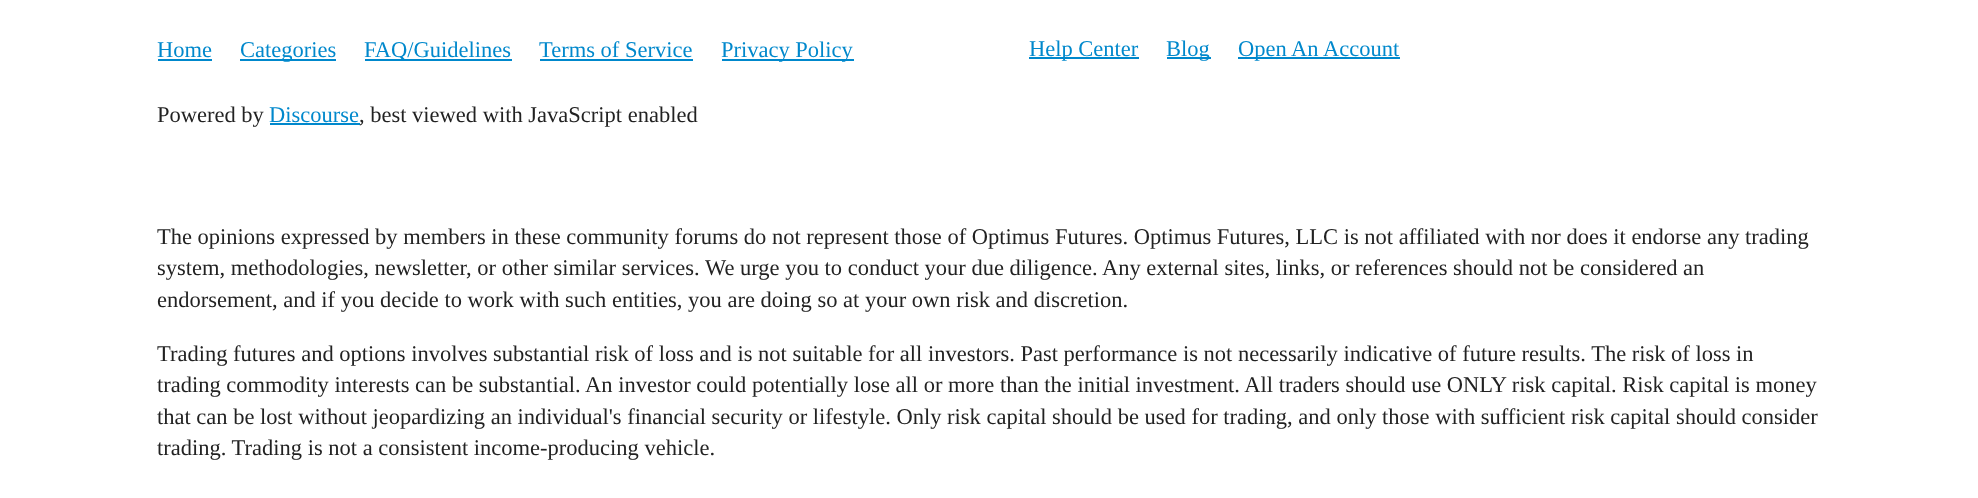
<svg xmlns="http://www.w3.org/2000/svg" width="1978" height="498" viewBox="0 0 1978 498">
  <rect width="100%" height="100%" fill="rgb(255,255,255)"/>
  <text x="157" y="57" font-family="Liberation Serif" font-size="22.5" fill="rgb(0,136,204)">Home</text>
  <rect x="158" y="59" width="54" height="2" fill="rgb(0,136,204)"/>
  <rect x="240" y="59" width="96" height="2" fill="rgb(0,136,204)"/>
  <text x="240" y="57" font-family="Liberation Serif" font-size="22.5" fill="rgb(0,136,204)">Categories</text>
  <rect x="365" y="59" width="147" height="2" fill="rgb(0,136,204)"/>
  <g font-family="Liberation Serif" font-size="22.5" fill="rgb(0,136,204)">
    <text x="364" y="57">FAQ/Guidelines</text>
    <text x="539" y="57">Terms of Service</text>
  </g>
  <rect x="540" y="59" width="153" height="2" fill="rgb(0,136,204)"/>
  <rect x="722" y="59" width="132" height="2" fill="rgb(0,136,204)"/>
  <text x="721" y="57" font-family="Liberation Serif" font-size="22.5" fill="rgb(0,136,204)">Privacy Policy</text>
  <text x="157" y="122" font-family="Liberation Serif" font-size="22.5" fill="rgb(34,34,34)">Powered by</text>
  <text x="269" y="122" font-family="Liberation Serif" font-size="22.5" fill="rgb(0,136,204)">Discourse</text>
  <rect x="270" y="123" width="90" height="2" fill="rgb(0,136,204)"/>
  <text x="359" y="122" font-family="Liberation Serif" font-size="22.5" fill="rgb(34,34,34)">, best viewed with JavaScript enabled</text>
  <rect x="1029" y="57" width="110" height="2" fill="rgb(0,136,204)"/>
  <text x="1029" y="56" font-family="Liberation Serif" font-size="22.5" fill="rgb(0,136,204)">Help Center</text>
  <rect x="1167" y="57" width="44" height="2" fill="rgb(0,136,204)"/>
  <text x="1166" y="56" font-family="Liberation Serif" font-size="22.5" fill="rgb(0,136,204)">Blog</text>
  <rect x="1238" y="57" width="162" height="2" fill="rgb(0,136,204)"/>
  <text x="1238" y="56" font-family="Liberation Serif" font-size="22.5" fill="rgb(0,136,204)">Open An Account</text>
  <g font-family="Liberation Serif" font-size="22.5" fill="rgb(34,34,34)">
    <text>
      <tspan x="157" y="244">The opinions expressed by members in these community forums do not represent those of Optimus Futures. Optimus Futures, LLC is not affiliated with nor does it endorse any trading</tspan>
      <tspan x="157" y="275">system, methodologies, newsletter, or other similar services. We urge you to conduct your due diligence. Any external sites, links, or references should not be considered an</tspan>
      <tspan x="157" y="307">endorsement, and if you decide to work with such entities, you are doing so at your own risk and discretion.</tspan>
    </text>
    <text>
      <tspan x="157" y="361">Trading futures and options involves substantial risk of loss and is not suitable for all investors. Past performance is not necessarily indicative of future results. The risk of loss in</tspan>
      <tspan x="157" y="392">trading commodity interests can be substantial. An investor could potentially lose all or more than the initial investment. All traders should use ONLY risk capital. Risk capital is money</tspan>
      <tspan x="157" y="424">that can be lost without jeopardizing an individual's financial security or lifestyle. Only risk capital should be used for trading, and only those with sufficient risk capital should consider</tspan>
      <tspan x="157" y="455">trading. Trading is not a consistent income-producing vehicle.</tspan>
    </text>
  </g>
</svg>
